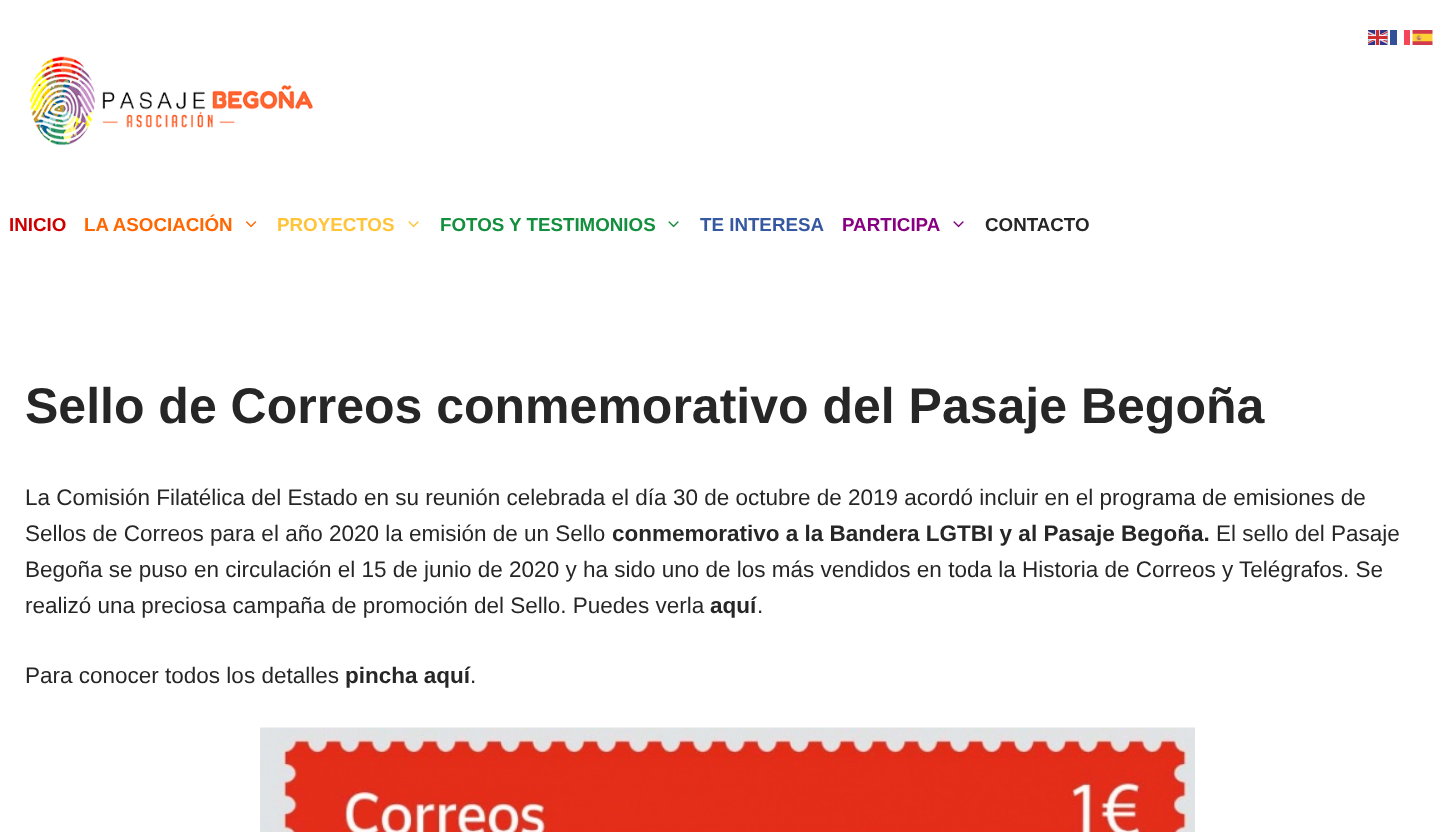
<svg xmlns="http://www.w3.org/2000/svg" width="1453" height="832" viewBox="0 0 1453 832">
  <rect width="100%" height="100%" fill="rgb(255,255,255)"/>
  <image x="1368" y="30" width="20" height="15" href="pic1.png"/>
  <rect x="1390" y="30" width="7" height="15" fill="rgb(51,81,153)"/>
  <rect x="1404" y="30" width="6" height="15" fill="rgb(245,70,89)"/>
  <image x="1412" y="30" width="21" height="15" href="pic2.png"/>
  <image x="30" y="56" width="283" height="89" href="pic3.png"/>
  <text x="9" y="231" font-family="Liberation Sans" font-size="18.75" font-weight="bold" fill="rgb(204,0,0)">INICIO</text>
  <text x="84" y="231" font-family="Liberation Sans" font-size="18.75" font-weight="bold" fill="rgb(255,103,0)">LA ASOCIACIÓN</text>
  <image x="245" y="221" width="12" height="7" href="pic4.png"/>
  <text x="277" y="231" font-family="Liberation Sans" font-size="18.75" font-weight="bold" fill="rgb(255,196,57)">PROYECTOS</text>
  <image x="408" y="221" width="11" height="7" href="pic5.png"/>
  <text x="440" y="231" font-family="Liberation Sans" font-size="18.75" font-weight="bold" fill="rgb(19,143,62)">FOTOS Y TESTIMONIOS</text>
  <image x="668" y="221" width="11" height="7" href="pic6.png"/>
  <text x="700" y="231" font-family="Liberation Sans" font-size="18.75" font-weight="bold" fill="rgb(53,88,160)">TE INTERESA</text>
  <text x="842" y="231" font-family="Liberation Sans" font-size="18.75" font-weight="bold" fill="rgb(136,0,130)">PARTICIPA</text>
  <image x="953" y="221" width="11" height="7" href="pic7.png"/>
  <text x="985" y="231" font-family="Liberation Sans" font-size="18.75" font-weight="bold" fill="rgb(38,38,38)">CONTACTO</text>
  <text x="25" y="423" font-family="Liberation Sans" font-size="50" font-weight="bold" fill="rgb(38,38,38)">Sello de Correos conmemorativo del Pasaje Begoña</text>
  <g font-family="Liberation Sans" font-size="22.5" fill="rgb(38,38,38)">
    <text>
      <tspan x="25" y="505">La Comisión Filatélica del Estado en su reunión celebrada el día 30 de octubre de 2019 acordó incluir en el programa de emisiones de</tspan>
      <tspan x="25" y="541">Sellos de Correos para el año 2020 la emisión de un Sello</tspan>
    </text>
  </g>
  <text x="612" y="541" font-family="Liberation Sans" font-size="22.5" font-weight="bold" fill="rgb(38,38,38)">conmemorativo a la Bandera LGTBI y al Pasaje Begoña.</text>
  <g font-family="Liberation Sans" font-size="22.5" fill="rgb(38,38,38)">
    <text x="1216" y="541">El sello del Pasaje</text>
    <text>
      <tspan x="25" y="577">Begoña se puso en circulación el 15 de junio de 2020 y ha sido uno de los más vendidos en toda la Historia de Correos y Telégrafos. Se</tspan>
      <tspan x="25" y="613">realizó una preciosa campaña de promoción del Sello. Puedes verla</tspan>
    </text>
  </g>
  <text x="710" y="613" font-family="Liberation Sans" font-size="22.5" font-weight="bold" fill="rgb(38,38,38)">aquí</text>
  <g font-family="Liberation Sans" font-size="22.5" fill="rgb(38,38,38)">
    <text x="757" y="613">.</text>
    <text x="25" y="683">Para conocer todos los detalles</text>
  </g>
  <text x="345" y="683" font-family="Liberation Sans" font-size="22.5" font-weight="bold" fill="rgb(38,38,38)">pincha aquí</text>
  <text x="470" y="683" font-family="Liberation Sans" font-size="22.5" fill="rgb(38,38,38)">.</text>
  <image x="260" y="727" width="935" height="105" href="pic8.png"/>
</svg>
